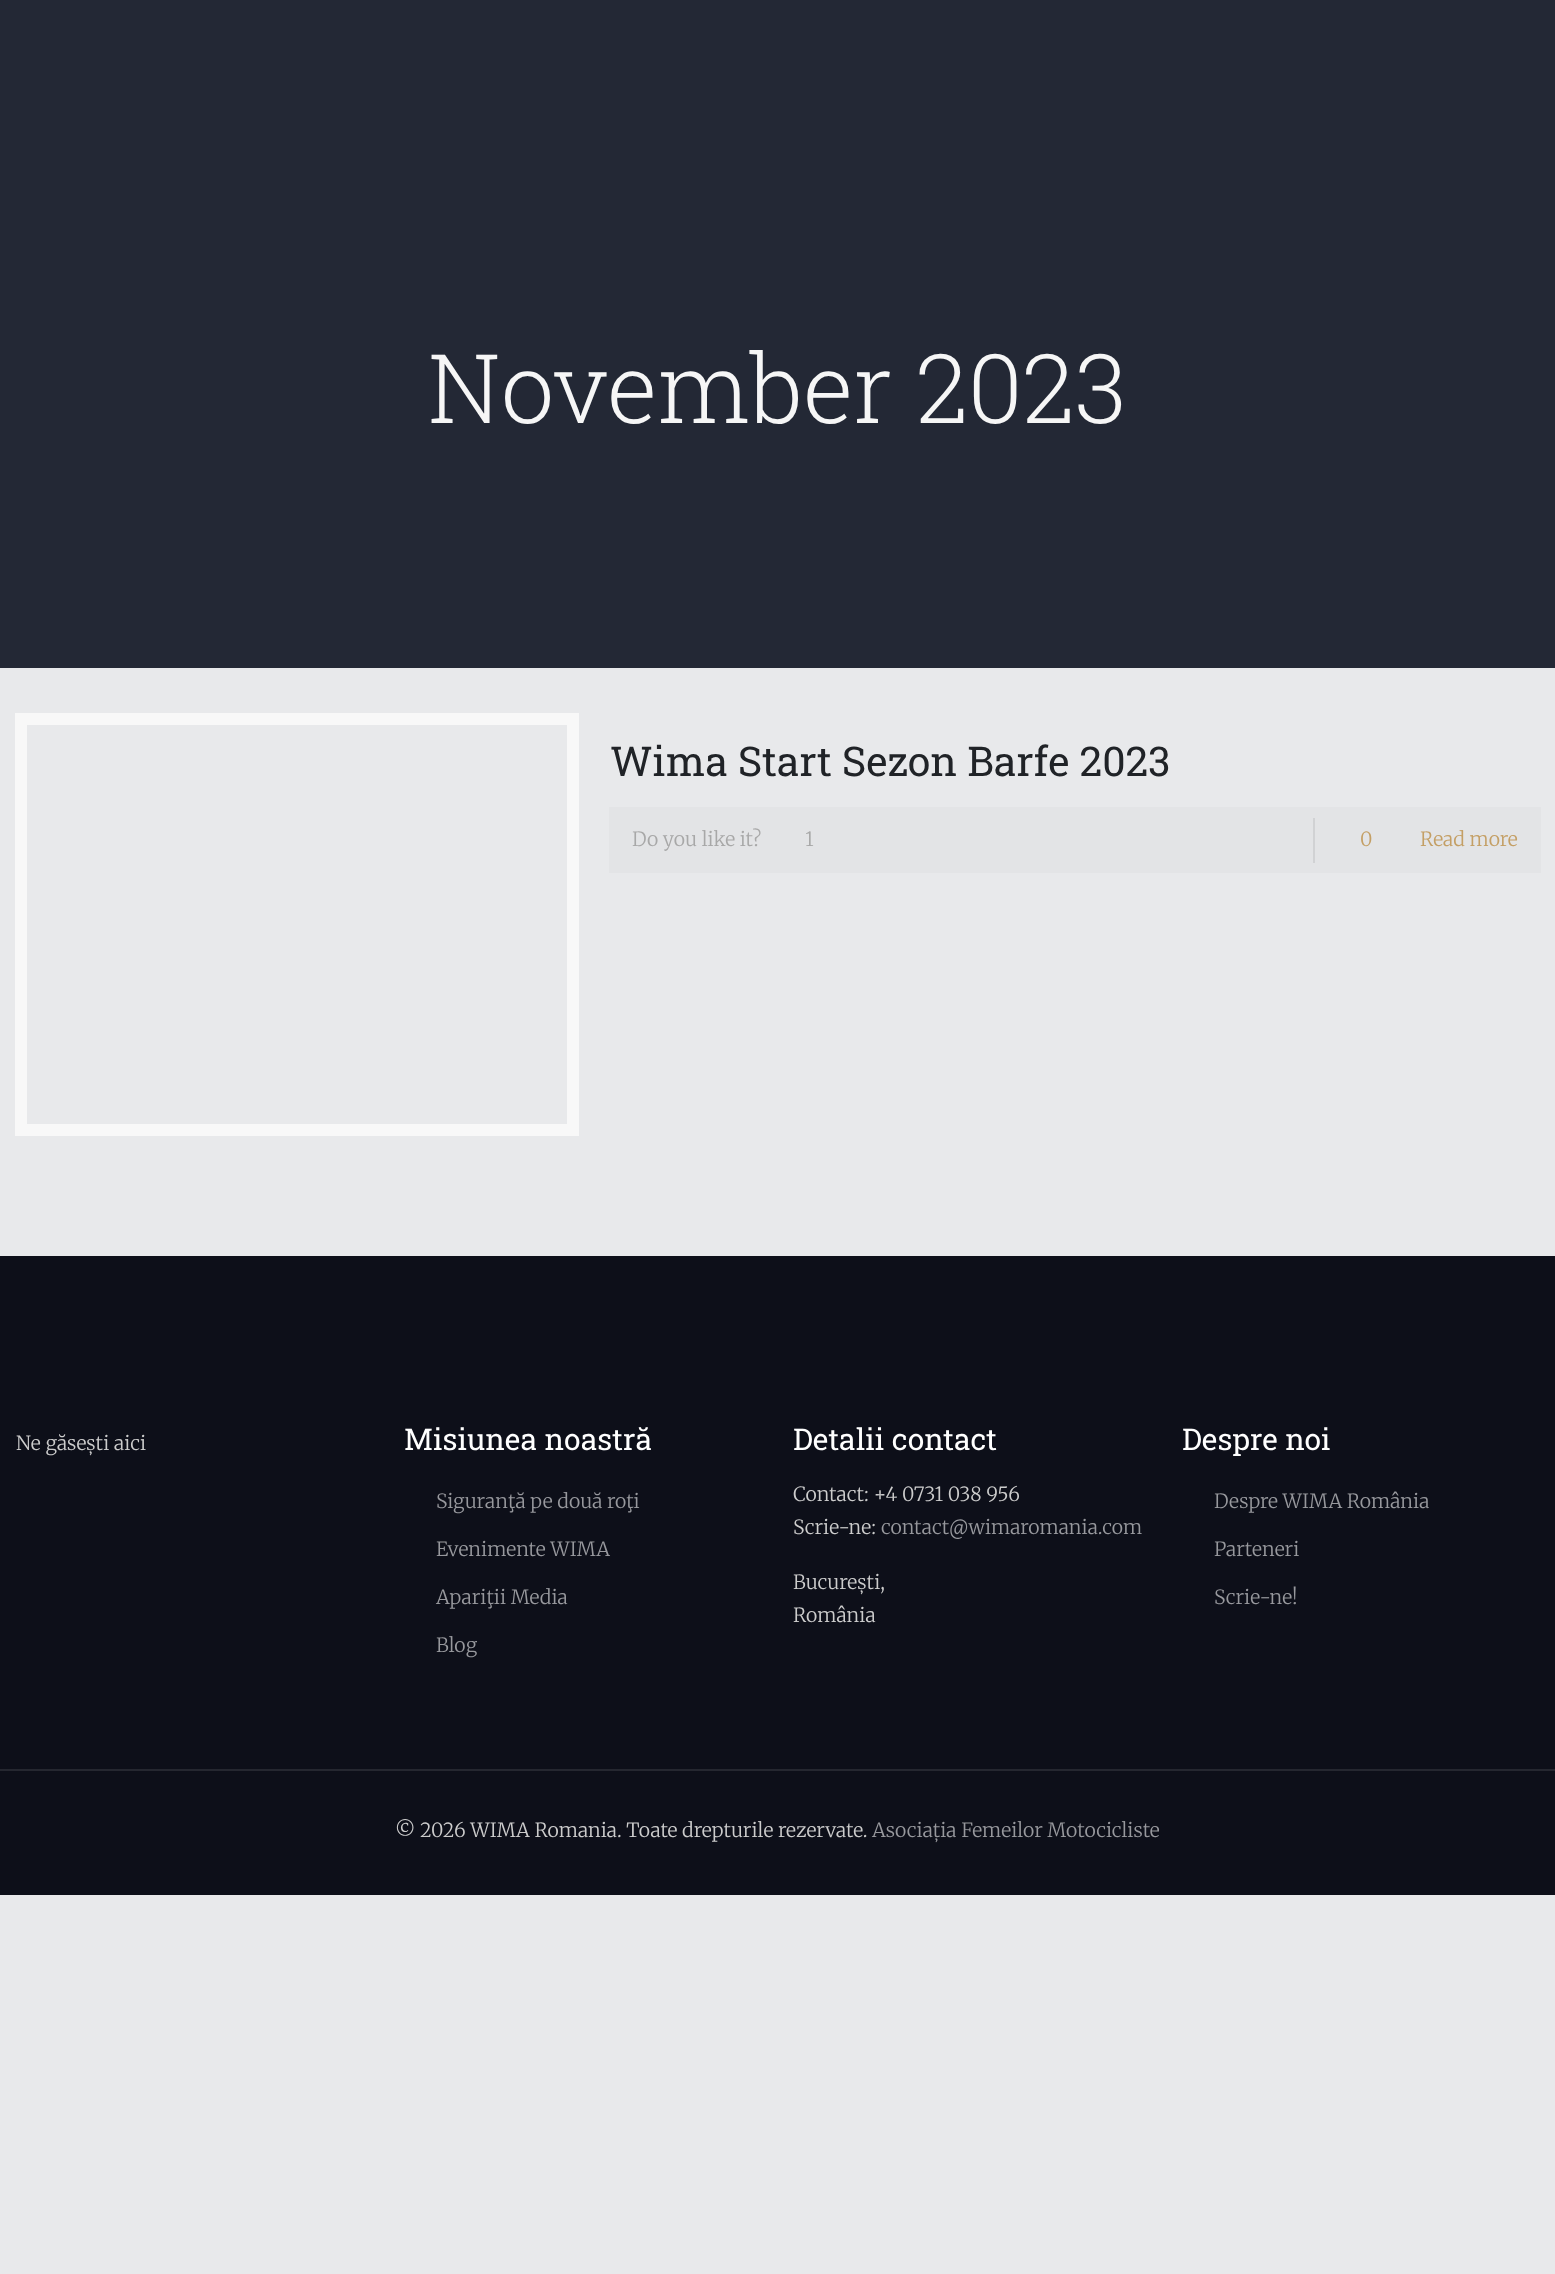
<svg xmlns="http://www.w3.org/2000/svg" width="1555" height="2274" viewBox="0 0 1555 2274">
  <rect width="100%" height="100%" fill="rgb(232,233,235)"/>
  <rect x="0" y="0" width="1555" height="668" fill="rgb(35,40,53)"/>
  <text x="428" y="423" font-family="Roboto Slab" font-size="96" font-weight="300" fill="rgb(246,246,246)">November 2023</text>
  <rect x="21" y="719" width="552" height="411" fill="none" stroke="rgb(248,248,248)" stroke-width="12"/>
  <text x="610" y="776" font-family="Roboto Slab" font-size="41" fill="rgb(32,35,39)">Wima Start Sezon Barfe 2023</text>
  <rect x="609" y="807" width="932" height="66" fill="rgb(227,228,230)"/>
  <g font-family="Merriweather" font-size="19.5" font-weight="300" fill="rgb(168,168,168)">
    <text x="632" y="846">Do you like it?</text>
    <text x="805" y="846">1</text>
  </g>
  <rect x="1313" y="818" width="2" height="45" fill="rgb(209,210,212)"/>
  <g font-family="Merriweather" font-size="19.5" font-weight="300" fill="rgb(196,159,101)">
    <text x="1360" y="846">0</text>
    <text x="1420" y="846">Read more</text>
  </g>
  <rect x="0" y="1256" width="1555" height="639" fill="rgb(13,15,25)"/>
  <text x="16" y="1450" font-family="Merriweather" font-size="19.5" font-weight="300" fill="rgb(204,204,204)">Ne găsești aici</text>
  <text x="404" y="1450" font-family="Roboto Slab" font-size="30" fill="rgb(255,255,255)">Misiunea noastră</text>
  <g font-family="Merriweather" font-size="19.5" font-weight="300" fill="rgb(151,152,157)">
    <text x="436" y="1508">Siguranţă pe două roţi</text>
    <text x="436" y="1556">Evenimente WIMA</text>
    <text x="436" y="1604">Apariţii Media</text>
    <text x="436" y="1652">Blog</text>
  </g>
  <text x="793" y="1450" font-family="Roboto Slab" font-size="30" fill="rgb(255,255,255)">Detalii contact</text>
  <g font-family="Merriweather" font-size="19.5" font-weight="300" fill="rgb(204,204,204)">
    <text>
      <tspan x="793" y="1501">Contact: +4 0731 038 956</tspan>
      <tspan x="793" y="1534">Scrie-ne:</tspan>
    </text>
  </g>
  <text x="881" y="1534" font-family="Merriweather" font-size="19.5" font-weight="300" fill="rgb(151,152,157)">contact@wimaromania.com</text>
  <g font-family="Merriweather" font-size="19.5" font-weight="300" fill="rgb(204,204,204)">
    <text>
      <tspan x="793" y="1589">București,</tspan>
      <tspan x="793" y="1622">România</tspan>
    </text>
  </g>
  <text x="1182" y="1450" font-family="Roboto Slab" font-size="30" fill="rgb(255,255,255)">Despre noi</text>
  <g font-family="Merriweather" font-size="19.5" font-weight="300" fill="rgb(151,152,157)">
    <text x="1214" y="1508">Despre WIMA România</text>
    <text x="1214" y="1556">Parteneri</text>
    <text x="1214" y="1604">Scrie-ne!</text>
  </g>
  <rect x="0" y="1769" width="1555" height="2" fill="rgb(37,39,48)"/>
  <text x="395" y="1837" font-family="Merriweather" font-size="19.5" font-weight="300" fill="rgb(204,204,204)">© 2026 WIMA Romania. Toate drepturile rezervate.</text>
  <text x="872" y="1837" font-family="Merriweather" font-size="19.5" font-weight="300" fill="rgb(151,152,157)">Asociația Femeilor Motocicliste</text>
</svg>
